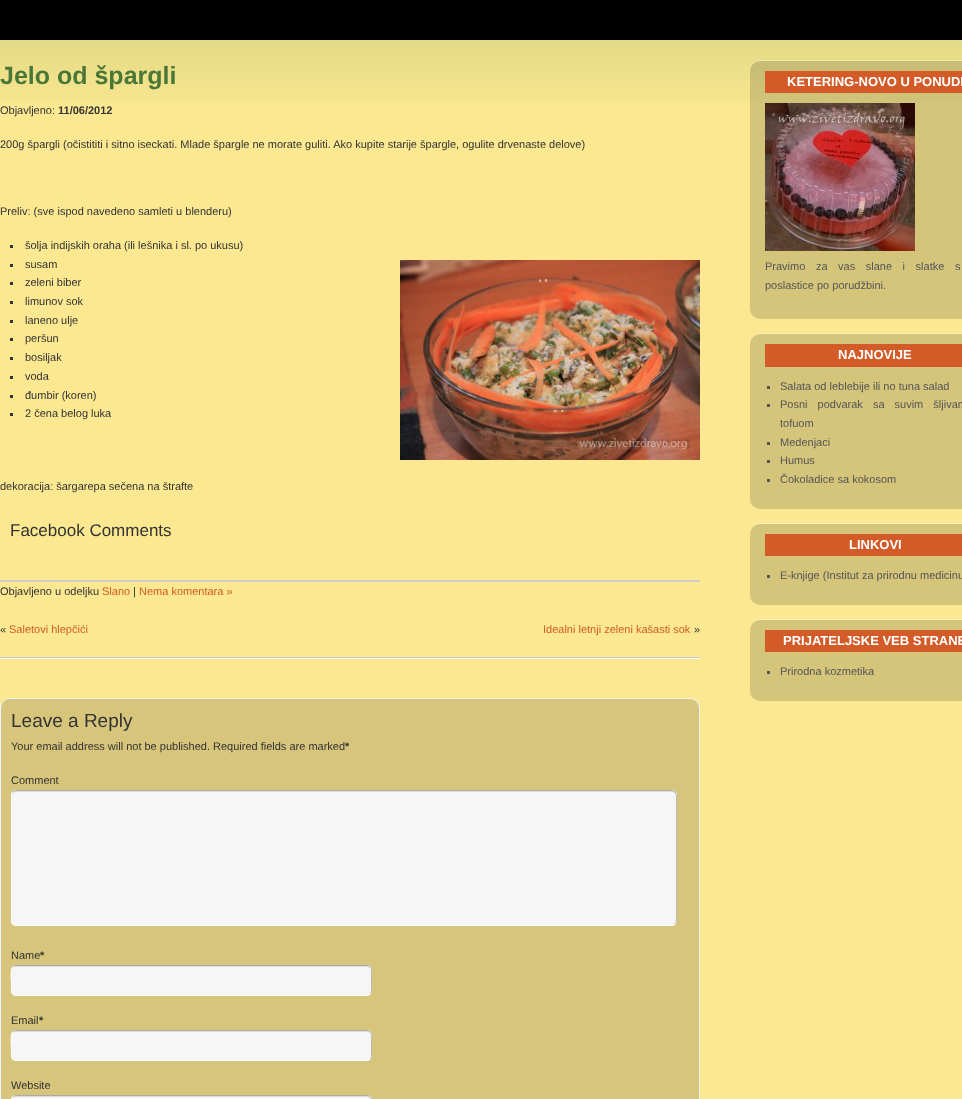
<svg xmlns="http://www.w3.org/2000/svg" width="962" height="1099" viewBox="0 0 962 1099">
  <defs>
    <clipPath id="clip1"><path d="M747 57H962V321H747ZM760 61H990C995.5 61 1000 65.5 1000 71V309C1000 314.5 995.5 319 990 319H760C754.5 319 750 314.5 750 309V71C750 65.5 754.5 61 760 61Z" clip-rule="evenodd"/></clipPath>
    <clipPath id="clip2"><path d="M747 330H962V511H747ZM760 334H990C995.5 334 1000 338.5 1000 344V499C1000 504.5 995.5 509 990 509H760C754.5 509 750 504.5 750 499V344C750 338.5 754.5 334 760 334Z" clip-rule="evenodd"/></clipPath>
    <clipPath id="clip3"><path d="M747 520H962V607H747ZM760 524H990C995.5 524 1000 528.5 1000 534V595C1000 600.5 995.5 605 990 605H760C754.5 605 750 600.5 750 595V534C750 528.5 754.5 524 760 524Z" clip-rule="evenodd"/></clipPath>
    <clipPath id="clip4"><path d="M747 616H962V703H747ZM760 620H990C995.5 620 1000 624.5 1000 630V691C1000 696.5 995.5 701 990 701H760C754.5 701 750 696.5 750 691V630C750 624.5 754.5 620 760 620Z" clip-rule="evenodd"/></clipPath>
  </defs>
  <rect width="100%" height="100%" fill="rgb(251,232,145)"/>
  <image x="0" y="40" width="962" height="63" href="pic1.png"/>
  <rect x="0" y="0" width="962" height="40" fill="rgb(0,0,0)"/>
  <text x="0" y="84" font-family="Liberation Sans" font-size="25" font-weight="bold" fill="rgb(74,119,56)">Jelo od špargli</text>
  <text x="0" y="114" font-family="Liberation Sans" font-size="11" fill="rgb(51,51,51)">Objavljeno:</text>
  <text x="58" y="114" font-family="Liberation Sans" font-size="11" font-weight="bold" fill="rgb(51,51,51)">11/06/2012</text>
  <g font-family="Liberation Sans" font-size="11" fill="rgb(51,51,51)">
    <text x="0" y="148">200g špargli (očistititi i sitno iseckati. Mlade špargle ne morate guliti. Ako kupite starije špargle, ogulite drvenaste delove)</text>
    <text x="0" y="215">Preliv: (sve ispod navedeno samleti u blenderu)</text>
  </g>
  <rect x="10" y="245" width="3" height="3" fill="rgb(51,51,51)"/>
  <text x="25" y="249" font-family="Liberation Sans" font-size="11" fill="rgb(51,51,51)">šolja indijskih oraha (ili lešnika i sl. po ukusu)</text>
  <rect x="10" y="264" width="3" height="3" fill="rgb(51,51,51)"/>
  <text x="25" y="268" font-family="Liberation Sans" font-size="11" fill="rgb(51,51,51)">susam</text>
  <image x="400" y="260" width="300" height="200" href="pic2.png"/>
  <rect x="10" y="282" width="3" height="3" fill="rgb(51,51,51)"/>
  <text x="25" y="286" font-family="Liberation Sans" font-size="11" fill="rgb(51,51,51)">zeleni biber</text>
  <rect x="10" y="301" width="3" height="3" fill="rgb(51,51,51)"/>
  <text x="25" y="305" font-family="Liberation Sans" font-size="11" fill="rgb(51,51,51)">limunov sok</text>
  <rect x="10" y="320" width="3" height="3" fill="rgb(51,51,51)"/>
  <text x="25" y="324" font-family="Liberation Sans" font-size="11" fill="rgb(51,51,51)">laneno ulje</text>
  <rect x="10" y="338" width="3" height="3" fill="rgb(51,51,51)"/>
  <text x="25" y="342" font-family="Liberation Sans" font-size="11" fill="rgb(51,51,51)">peršun</text>
  <rect x="10" y="357" width="3" height="3" fill="rgb(51,51,51)"/>
  <text x="25" y="361" font-family="Liberation Sans" font-size="11" fill="rgb(51,51,51)">bosiljak</text>
  <rect x="10" y="376" width="3" height="3" fill="rgb(51,51,51)"/>
  <text x="25" y="380" font-family="Liberation Sans" font-size="11" fill="rgb(51,51,51)">voda</text>
  <rect x="10" y="395" width="3" height="3" fill="rgb(51,51,51)"/>
  <text x="25" y="399" font-family="Liberation Sans" font-size="11" fill="rgb(51,51,51)">đumbir (koren)</text>
  <rect x="10" y="413" width="3" height="3" fill="rgb(51,51,51)"/>
  <g font-family="Liberation Sans" font-size="11" fill="rgb(51,51,51)">
    <text x="25" y="417">2 čena belog luka</text>
    <text x="0" y="490">dekoracija: šargarepa sečena na štrafte</text>
  </g>
  <text x="10" y="536" font-family="Liberation Sans" font-size="17" fill="rgb(51,51,51)">Facebook Comments</text>
  <rect x="0" y="580" width="700" height="2" fill="rgb(204,204,204)"/>
  <text x="0" y="595" font-family="Liberation Sans" font-size="11" fill="rgb(51,51,51)">Objavljeno u odeljku</text>
  <text x="102" y="595" font-family="Liberation Sans" font-size="11" fill="rgb(210,91,40)">Slano</text>
  <text x="133" y="595" font-family="Liberation Sans" font-size="11" fill="rgb(51,51,51)">|</text>
  <text x="139" y="595" font-family="Liberation Sans" font-size="11" fill="rgb(210,91,40)">Nema komentara »</text>
  <text x="0" y="633" font-family="Liberation Sans" font-size="11" fill="rgb(51,51,51)">«</text>
  <g font-family="Liberation Sans" font-size="11" fill="rgb(210,91,40)">
    <text x="9" y="633">Saletovi hlepčići</text>
    <text x="543" y="633">Idealni letnji zeleni kašasti sok</text>
  </g>
  <text x="694" y="633" font-family="Liberation Sans" font-size="11" fill="rgb(51,51,51)">»</text>
  <rect x="0" y="657" width="700" height="1" fill="rgb(204,204,204)"/>
  <rect x="0" y="658" width="700" height="1" fill="rgb(255,255,255)"/>
  <rect x="0.5" y="698.5" width="699" height="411" rx="9.5" fill="rgb(214,197,123)" stroke="rgb(236,246,253)"/>
  <text x="11" y="727" font-family="Liberation Sans" font-size="19" fill="rgb(51,51,51)">Leave a Reply</text>
  <text x="11" y="750" font-family="Liberation Sans" font-size="11" fill="rgb(51,51,51)">Your email address will not be published. Required fields are marked</text>
  <text x="345" y="750" font-family="Liberation Sans" font-size="11" font-weight="bold" fill="rgb(51,51,51)">*</text>
  <text x="11" y="784" font-family="Liberation Sans" font-size="11" fill="rgb(51,51,51)">Comment</text>
  <rect x="11" y="790" width="666" height="136" rx="5" fill="rgb(246,246,246)"/>
  <path d="M16 792H672C674 792 676 794 676 796C676 793 675 791 672 791H16L13 792L12 793V796C12 794 14 792 16 792Z" fill="rgb(221,221,221)"/>
  <path d="M13 792L16 790.5H672L675 792" fill="none" stroke="rgb(170,170,170)"/>
  <path d="M675 792L676.5 794.5V900V921L675 924" fill="none" stroke="rgb(187,187,187)"/>
  <path d="M675 924C674.5 925 673 925.5 672 925.5H16C15 925.5 13.5 925 13 924C12 923.5 11.5 922 11.5 921V795C11.5 794 12 792.5 13 792" fill="none" stroke="rgb(255,255,255)"/>
  <text x="11" y="959" font-family="Liberation Sans" font-size="11" fill="rgb(51,51,51)">Name</text>
  <text x="40" y="959" font-family="Liberation Sans" font-size="11" font-weight="bold" fill="rgb(51,51,51)">*</text>
  <rect x="11" y="965" width="361" height="31" rx="5" fill="rgb(246,246,246)"/>
  <path d="M16 967H367C369 967 371 969 371 971C371 968 370 966 367 966H15L13 968L12 971C12 969 14 967 16 967Z" fill="rgb(221,221,221)"/>
  <path d="M13 967C13.5 966 15 965.5 16 965.5H367C368 965.5 369.5 966 370 967" fill="none" stroke="rgb(170,170,170)"/>
  <path d="M370 967C371 967.5 371.5 969 371.5 970V991C371.5 992 371 993.5 370 994" fill="none" stroke="rgb(187,187,187)"/>
  <path d="M370 994L367 995.5H16C10 995.5 11.5 987.5 11.5 984C11.5 980.5 10 969.5 13 967" fill="none" stroke="rgb(255,255,255)"/>
  <text x="11" y="1024" font-family="Liberation Sans" font-size="11" fill="rgb(51,51,51)">Email</text>
  <text x="39" y="1024" font-family="Liberation Sans" font-size="11" font-weight="bold" fill="rgb(51,51,51)">*</text>
  <rect x="11" y="1030" width="361" height="31" rx="5" fill="rgb(246,246,246)"/>
  <path d="M16 1032H367C369 1032 371 1034 371 1036C371 1033 370 1031 367 1031H15L13 1033L12 1036C12 1034 14 1032 16 1032Z" fill="rgb(221,221,221)"/>
  <path d="M13 1032C13.5 1031 15 1030.5 16 1030.5H367C368 1030.5 369.5 1031 370 1032" fill="none" stroke="rgb(170,170,170)"/>
  <path d="M370 1032C371 1032.5 371.5 1034 371.5 1035V1056C371.5 1057 371 1058.5 370 1059" fill="none" stroke="rgb(187,187,187)"/>
  <path d="M370 1059L367 1060.5H16C10 1060.5 11.5 1052.5 11.5 1049C11.5 1045.5 10 1034.5 13 1032" fill="none" stroke="rgb(255,255,255)"/>
  <text x="11" y="1089" font-family="Liberation Sans" font-size="11" fill="rgb(51,51,51)">Website</text>
  <rect x="11" y="1095" width="361" height="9" rx="5" fill="rgb(246,246,246)"/>
  <path d="M16 1097H367C369 1097 371 1099 371 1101C371 1098 370 1096 367 1096H15L13 1098L12 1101C12 1099 14 1097 16 1097Z" fill="rgb(221,221,221)"/>
  <path d="M13 1097C13.5 1096 15 1095.5 16 1095.5H367C368 1095.5 369.5 1096 370 1097" fill="none" stroke="rgb(170,170,170)"/>
  <path d="M370 1097C371 1097.5 371.5 1099 371.5 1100V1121C371.5 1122 371 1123.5 370 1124" fill="none" stroke="rgb(187,187,187)"/>
  <path d="M370 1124L367 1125.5H16C10 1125.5 11.5 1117.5 11.5 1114C11.5 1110.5 10 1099.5 13 1097" fill="none" stroke="rgb(255,255,255)"/>
  <g clip-path="url(#clip1)">
    <rect x="750" y="60" width="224" height="258" rx="10" fill="rgba(255,255,255,0.3)" filter="blur(0.5px)"/>
  </g>
  <rect x="750" y="61" width="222" height="258" rx="10" fill="rgba(0,0,0,0.15)"/>
  <rect x="765" y="71" width="197" height="22" fill="rgb(210,91,40)"/>
  <text x="787" y="86" font-family="Liberation Sans" font-size="13" font-weight="bold" fill="rgb(255,255,255)">KETERING-NOVO U PONUDI</text>
  <image x="765" y="103" width="150" height="148" href="pic3.png"/>
  <g font-family="Liberation Sans" font-size="11" fill="rgb(85,85,85)">
    <text>
      <tspan x="765" y="270" word-spacing="7.5">Pravimo za vas slane i slatke s</tspan>
      <tspan x="765" y="289">poslastice po porudžbini.</tspan>
    </text>
  </g>
  <g clip-path="url(#clip2)">
    <rect x="750" y="333" width="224" height="175" rx="10" fill="rgba(255,255,255,0.3)" filter="blur(0.5px)"/>
  </g>
  <rect x="750" y="334" width="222" height="175" rx="10" fill="rgba(0,0,0,0.15)"/>
  <rect x="765" y="344" width="197" height="23" fill="rgb(210,91,40)"/>
  <text x="838" y="359" font-family="Liberation Sans" font-size="13" font-weight="bold" fill="rgb(255,255,255)">NAJNOVIJE</text>
  <rect x="767" y="386" width="3" height="3" fill="rgb(85,85,85)"/>
  <text x="780" y="390" font-family="Liberation Sans" font-size="11" fill="rgb(85,85,85)">Salata od leblebije ili no tuna salad</text>
  <rect x="767" y="404" width="3" height="3" fill="rgb(85,85,85)"/>
  <g font-family="Liberation Sans" font-size="11" fill="rgb(85,85,85)">
    <text>
      <tspan x="780" y="408" word-spacing="7">Posni podvarak sa suvim šljivam</tspan>
      <tspan x="780" y="427">tofuom</tspan>
    </text>
  </g>
  <rect x="767" y="442" width="3" height="3" fill="rgb(85,85,85)"/>
  <text x="780" y="446" font-family="Liberation Sans" font-size="11" fill="rgb(85,85,85)">Medenjaci</text>
  <rect x="767" y="460" width="3" height="3" fill="rgb(85,85,85)"/>
  <text x="780" y="464" font-family="Liberation Sans" font-size="11" fill="rgb(85,85,85)">Humus</text>
  <rect x="767" y="479" width="3" height="3" fill="rgb(85,85,85)"/>
  <text x="780" y="483" font-family="Liberation Sans" font-size="11" fill="rgb(85,85,85)">Čokoladice sa kokosom</text>
  <g clip-path="url(#clip3)">
    <rect x="750" y="523" width="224" height="81" rx="10" fill="rgba(255,255,255,0.3)" filter="blur(0.5px)"/>
  </g>
  <rect x="750" y="524" width="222" height="81" rx="10" fill="rgba(0,0,0,0.15)"/>
  <rect x="765" y="534" width="197" height="22" fill="rgb(210,91,40)"/>
  <text x="849" y="549" font-family="Liberation Sans" font-size="13" font-weight="bold" fill="rgb(255,255,255)">LINKOVI</text>
  <rect x="767" y="575" width="3" height="3" fill="rgb(85,85,85)"/>
  <text x="780" y="579" font-family="Liberation Sans" font-size="11" fill="rgb(85,85,85)">E-knjige (Institut za prirodnu medicinu</text>
  <g clip-path="url(#clip4)">
    <rect x="750" y="619" width="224" height="81" rx="10" fill="rgba(255,255,255,0.3)" filter="blur(0.5px)"/>
  </g>
  <rect x="750" y="620" width="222" height="81" rx="10" fill="rgba(0,0,0,0.15)"/>
  <rect x="765" y="630" width="197" height="22" fill="rgb(210,91,40)"/>
  <text x="783" y="645" font-family="Liberation Sans" font-size="13" font-weight="bold" fill="rgb(255,255,255)">PRIJATELJSKE VEB STRANE</text>
  <rect x="767" y="671" width="3" height="3" fill="rgb(85,85,85)"/>
  <text x="780" y="675" font-family="Liberation Sans" font-size="11" fill="rgb(85,85,85)">Prirodna kozmetika</text>
</svg>
